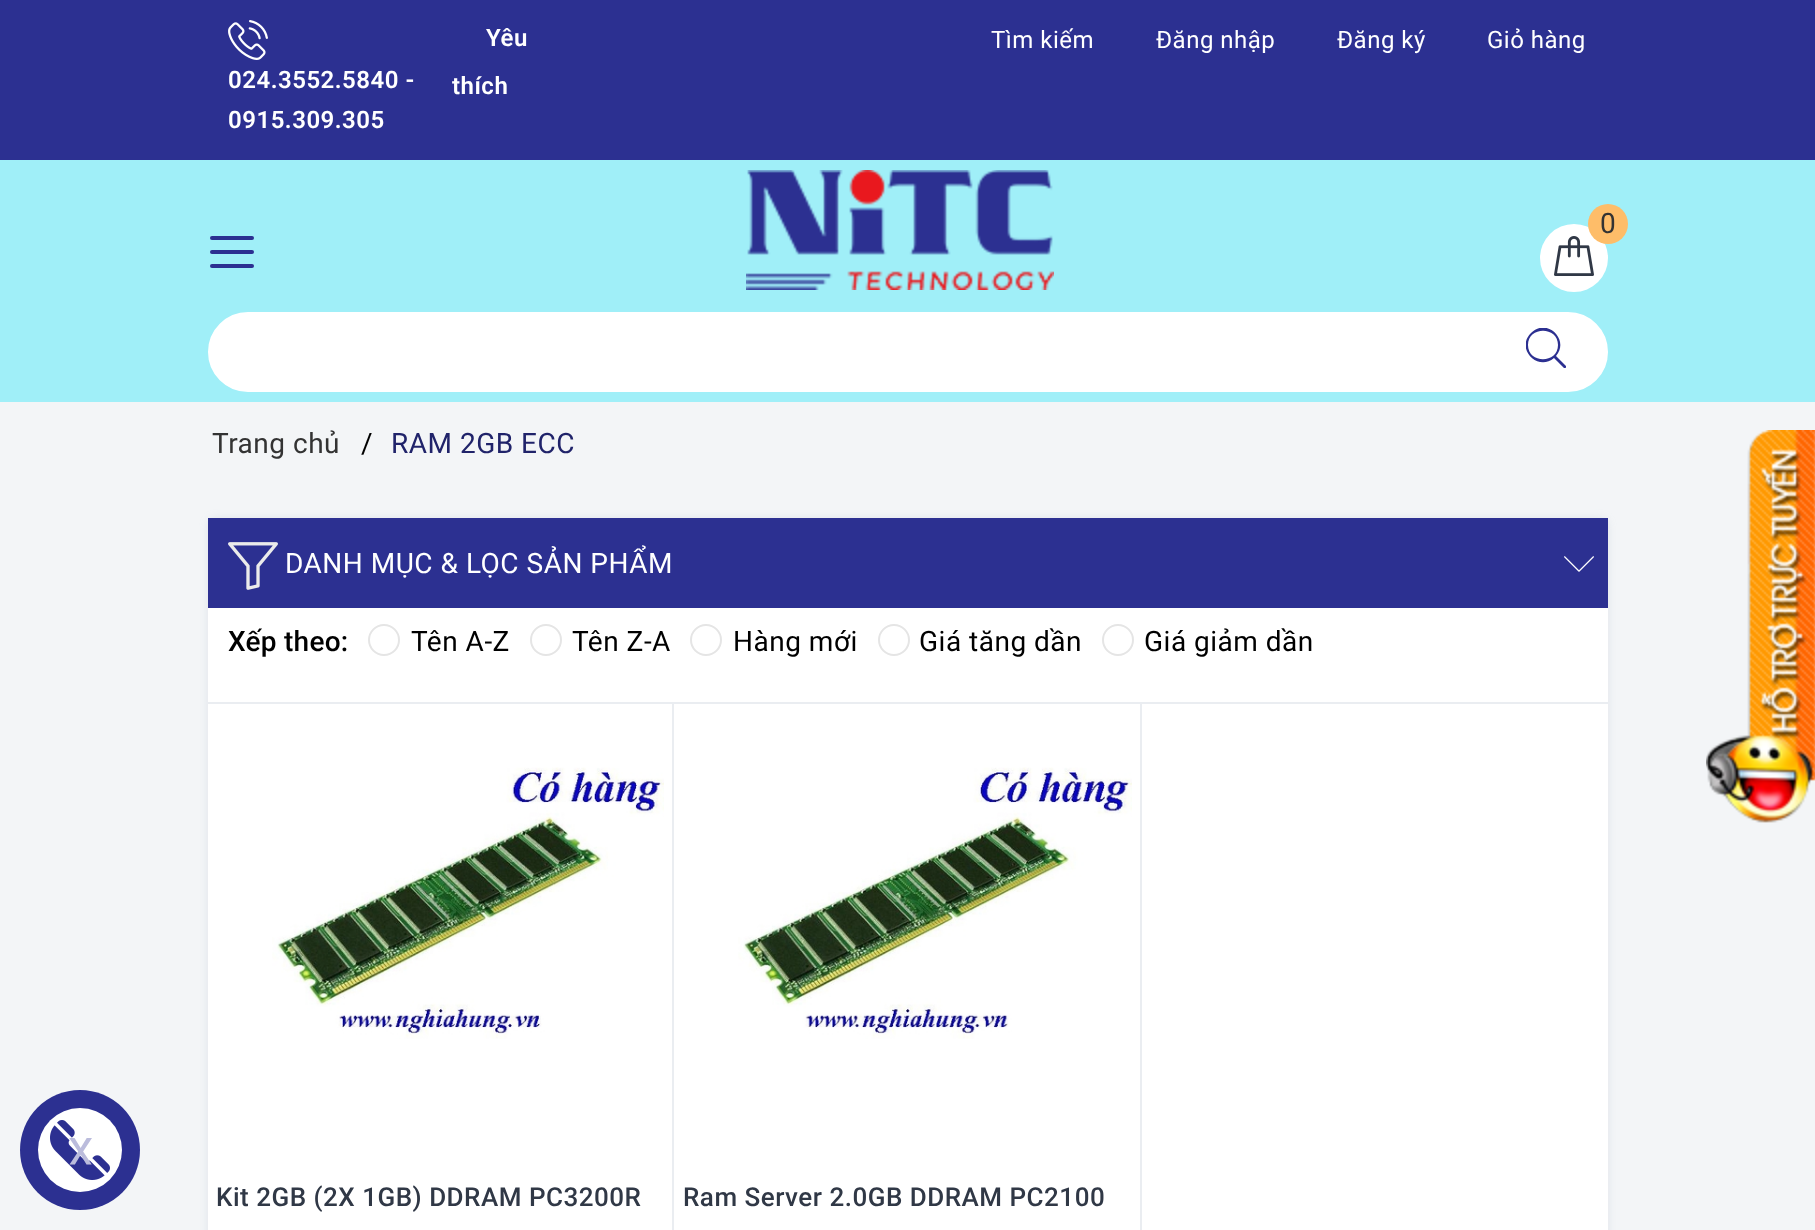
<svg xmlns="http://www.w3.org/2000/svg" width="1815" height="1230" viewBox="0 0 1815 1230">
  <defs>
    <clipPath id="clip1"><rect x="1526" y="328" width="40" height="40"/></clipPath>
  </defs>
  <rect width="100%" height="100%" fill="rgb(243,245,247)"/>
  <rect x="0" y="0" width="1815" height="160" fill="rgb(44,48,145)"/>
  <image x="228" y="20" width="40" height="40" href="pic1.png"/>
  <g font-family="Roboto" font-size="24" font-weight="600" letter-spacing="0.5" fill="rgb(255,255,255)">
    <text>
      <tspan x="228" y="88">024.3552.5840 -</tspan>
      <tspan x="228" y="128">0915.309.305</tspan>
    </text>
    <text x="486" y="46">Yêu</text>
    <text x="452" y="94">thích</text>
  </g>
  <g font-family="Roboto" font-size="24" letter-spacing="0.5" fill="rgb(255,255,255)">
    <text x="991" y="48">Tìm kiếm</text>
    <text x="1156" y="48">Đăng nhập</text>
    <text x="1337" y="48">Đăng ký</text>
    <text x="1487" y="48">Giỏ hàng</text>
  </g>
  <rect x="0" y="160" width="1815" height="242" fill="rgb(160,239,248)"/>
  <image x="746" y="170" width="308" height="120" href="pic2.png"/>
  <circle cx="1574" cy="258" r="34" fill="rgb(255,255,255)"/>
  <image x="1554" y="236" width="40" height="40" href="pic3.png"/>
  <circle cx="1608" cy="224" r="20" fill="rgb(254,189,105)"/>
  <text x="1600" y="233" font-family="Roboto" font-size="28" letter-spacing="0.5" fill="rgb(51,51,51)">0</text>
  <rect x="210" y="236" width="44" height="4" rx="2" fill="rgb(44,48,145)"/>
  <rect x="210" y="250" width="44" height="4" rx="2" fill="rgb(44,48,145)"/>
  <rect x="210" y="264" width="44" height="4" rx="2" fill="rgb(44,48,145)"/>
  <path d="M248 313H1485V391H248C226.5 391 209 373.5 209 352C209 330.5 226.5 313 248 313Z" fill="rgb(255,255,255)" stroke="rgb(255,255,255)" stroke-width="2"/>
  <path d="M1485 313H1568C1589.5 313 1607 330.5 1607 352C1607 373.5 1589.5 391 1568 391H1485Z" fill="rgb(255,255,255)" stroke="rgb(255,255,255)" stroke-width="2"/>
  <g clip-path="url(#clip1)">
    <path d="M1566 366L1556 356C1570 340 1547 317 1531 333C1515 349 1538 372 1554 358L1564 368C1565 369 1567 367 1566 366ZM1528 345C1528 326 1558 326 1558 345C1558 364 1528 364 1528 345Z" fill="rgb(44,48,145)"/>
  </g>
  <text x="212" y="453" font-family="Roboto" font-size="28" letter-spacing="0.5" fill="rgb(51,51,51)">Trang chủ</text>
  <text x="361" y="453" font-family="Roboto" font-size="28" letter-spacing="0.5" fill="rgb(0,0,0)">/</text>
  <text x="391" y="453" font-family="Roboto" font-size="28" letter-spacing="0.5" fill="rgb(32,35,106)">RAM 2GB ECC</text>
  <image x="1706" y="430" width="109" height="393" href="pic4.png"/>
  <circle cx="80" cy="1150" r="60" fill="rgb(44,48,145)"/>
  <circle cx="80" cy="1150" r="42" fill="rgb(255,255,255)"/>
  <image x="50" y="1120" width="60" height="60" href="pic5.png"/>
  <text x="93" y="1138" transform="rotate(180 93 1138)" font-family="Roboto" font-size="50" letter-spacing="0.5" fill="rgb(187,188,220)">x</text>
  <rect x="208" y="518" width="1400" height="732" rx="8" fill="rgba(152,165,185,0.2)" filter="blur(4px)"/>
  <rect x="208" y="608" width="1400" height="622" fill="rgb(255,255,255)"/>
  <rect x="208" y="518" width="1400" height="90" fill="rgb(44,48,145)"/>
  <image x="228" y="542" width="50" height="48" href="pic6.png"/>
  <text x="285" y="573" font-family="Roboto" font-size="28" letter-spacing="0.5" fill="rgb(255,255,255)">DANH MỤC &amp; LỌC SẢN PHẨM</text>
  <image x="1564" y="556" width="30" height="16" href="pic7.png"/>
  <rect x="208" y="702" width="1400" height="2" fill="rgb(234,237,241)"/>
  <text x="228" y="651" font-family="Roboto" font-size="28" font-weight="500" letter-spacing="0.25" fill="rgb(0,0,0)">Xếp theo:</text>
  <circle cx="384" cy="640" r="15" fill="none" stroke="rgb(229,229,229)" stroke-width="2"/>
  <text x="411" y="651" font-family="Roboto" font-size="28" letter-spacing="0.5" fill="rgb(0,0,0)">Tên A-Z</text>
  <circle cx="546" cy="640" r="15" fill="none" stroke="rgb(229,229,229)" stroke-width="2"/>
  <text x="572" y="651" font-family="Roboto" font-size="28" letter-spacing="0.5" fill="rgb(0,0,0)">Tên Z-A</text>
  <circle cx="706" cy="640" r="15" fill="none" stroke="rgb(229,229,229)" stroke-width="2"/>
  <text x="733" y="651" font-family="Roboto" font-size="28" letter-spacing="0.5" fill="rgb(0,0,0)">Hàng mới</text>
  <circle cx="894" cy="640" r="15" fill="none" stroke="rgb(229,229,229)" stroke-width="2"/>
  <text x="919" y="651" font-family="Roboto" font-size="28" letter-spacing="0.5" fill="rgb(0,0,0)">Giá tăng dần</text>
  <circle cx="1118" cy="640" r="15" fill="none" stroke="rgb(229,229,229)" stroke-width="2"/>
  <text x="1144" y="651" font-family="Roboto" font-size="28" letter-spacing="0.5" fill="rgb(0,0,0)">Giá giảm dần</text>
  <rect x="672" y="704" width="2" height="526" fill="rgb(234,237,241)"/>
  <image x="272" y="767" width="392" height="272" href="pic8.png"/>
  <text x="216" y="1206" font-family="Roboto" font-size="26" font-weight="500" letter-spacing="0.5" fill="rgb(48,56,70)">Kit 2GB (2X 1GB) DDRAM PC3200R</text>
  <rect x="1140" y="704" width="2" height="526" fill="rgb(234,237,241)"/>
  <image x="738" y="767" width="394" height="272" href="pic9.png"/>
  <text x="683" y="1206" font-family="Roboto" font-size="26" font-weight="500" letter-spacing="0.5" fill="rgb(48,56,70)">Ram Server 2.0GB DDRAM PC2100</text>
</svg>
